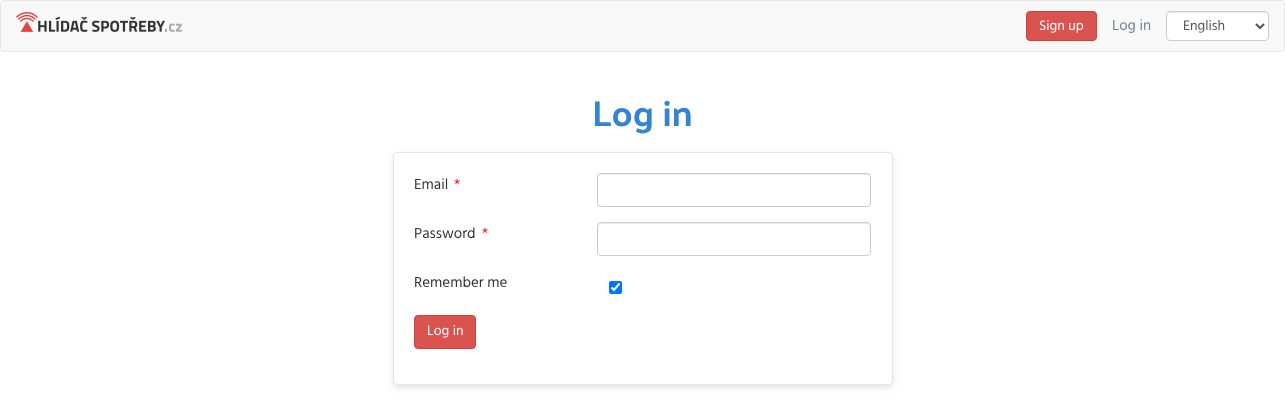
<svg xmlns="http://www.w3.org/2000/svg" width="1285" height="408" viewBox="0 0 1285 408">
  <defs>
    <clipPath id="clip1"><path d="M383 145H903V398H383ZM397 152H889C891 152 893 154 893 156V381C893 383 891 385 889 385H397C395 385 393 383 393 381V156C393 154 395 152 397 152Z" clip-rule="evenodd"/></clipPath>
  </defs>
  <rect width="100%" height="100%" fill="rgb(255,255,255)"/>
  <rect x="0.5" y="0.5" width="1284" height="51" rx="3.5" fill="rgb(248,248,248)" stroke="rgb(231,231,231)"/>
  <image x="16" y="12" width="166" height="20" href="pic1.png"/>
  <rect x="1026.5" y="11.5" width="70" height="29" rx="3.5" fill="rgb(217,83,79)" stroke="rgb(212,63,58)"/>
  <text x="1039" y="30" font-family="Hind" font-size="14" fill="rgb(255,255,255)">Sign up</text>
  <text x="1112" y="30" font-family="Hind" font-size="15" fill="rgb(113,128,150)">Log in</text>
  <rect x="1166" y="11" width="103" height="30" rx="4" fill="rgb(255,255,255)"/>
  <path d="M1170 13H1265C1267 13 1268 14 1268 16C1268 8 1252 12 1249 12H1186C1183 12 1167 8 1167 16C1167 14 1168 13 1170 13Z" fill="rgb(236,236,236)"/>
  <rect x="1166.5" y="11.5" width="102" height="29" rx="3.5" fill="none" stroke="rgb(204,204,204)"/>
  <path d="M1256 24L1260 28L1264 24" fill="none" stroke="rgb(85,85,85)" stroke-width="2"/>
  <text x="1183" y="30" font-family="Hind" font-size="14" fill="rgb(85,85,85)">English</text>
  <text x="592" y="126" font-family="Palanquin Dark" font-size="36" fill="rgb(52,132,210)">Log in</text>
  <g clip-path="url(#clip1)">
    <rect x="393" y="155" width="500" height="233" rx="4" fill="rgba(0,0,0,0.1)" filter="blur(3px)"/>
  </g>
  <rect x="393.5" y="152.5" width="499" height="232" rx="3.5" fill="none" stroke="rgb(228,228,228)"/>
  <text x="414" y="189" font-family="Hind" font-size="15" fill="rgb(51,51,51)">Email</text>
  <text x="454" y="189" font-family="Hind" font-size="15" fill="rgb(255,0,0)">*</text>
  <path d="M601 175H867C869 175 870 176 870 178V177C870 175 869 174 867 174H601C599 174 598 175 598 177V178C598 176 599 175 601 175Z" fill="rgb(236,236,236)"/>
  <rect x="597.5" y="173.5" width="273" height="33" rx="3.5" fill="none" stroke="rgb(204,204,204)"/>
  <text x="414" y="238" font-family="Hind" font-size="15" fill="rgb(51,51,51)">Password</text>
  <text x="482" y="238" font-family="Hind" font-size="15" fill="rgb(255,0,0)">*</text>
  <path d="M601 224H867C869 224 870 225 870 227V226C870 224 869 223 867 223H601C599 223 598 224 598 226V227C598 225 599 224 601 224Z" fill="rgb(236,236,236)"/>
  <rect x="597.5" y="222.5" width="273" height="33" rx="3.5" fill="none" stroke="rgb(204,204,204)"/>
  <text x="414" y="287" font-family="Hind" font-size="15" fill="rgb(51,51,51)">Remember me</text>
  <rect x="609" y="281" width="13" height="13" rx="2" fill="rgb(0,117,255)"/>
  <path d="M611.5 287.5L614 290L619.5 283.5" fill="none" stroke="rgb(255,255,255)" stroke-width="2.1"/>
  <rect x="414.5" y="315.5" width="61" height="33" rx="3.5" fill="rgb(217,83,79)" stroke="rgb(212,63,58)"/>
  <text x="427" y="335" font-family="Hind" font-size="14" fill="rgb(255,255,255)">Log in</text>
</svg>
